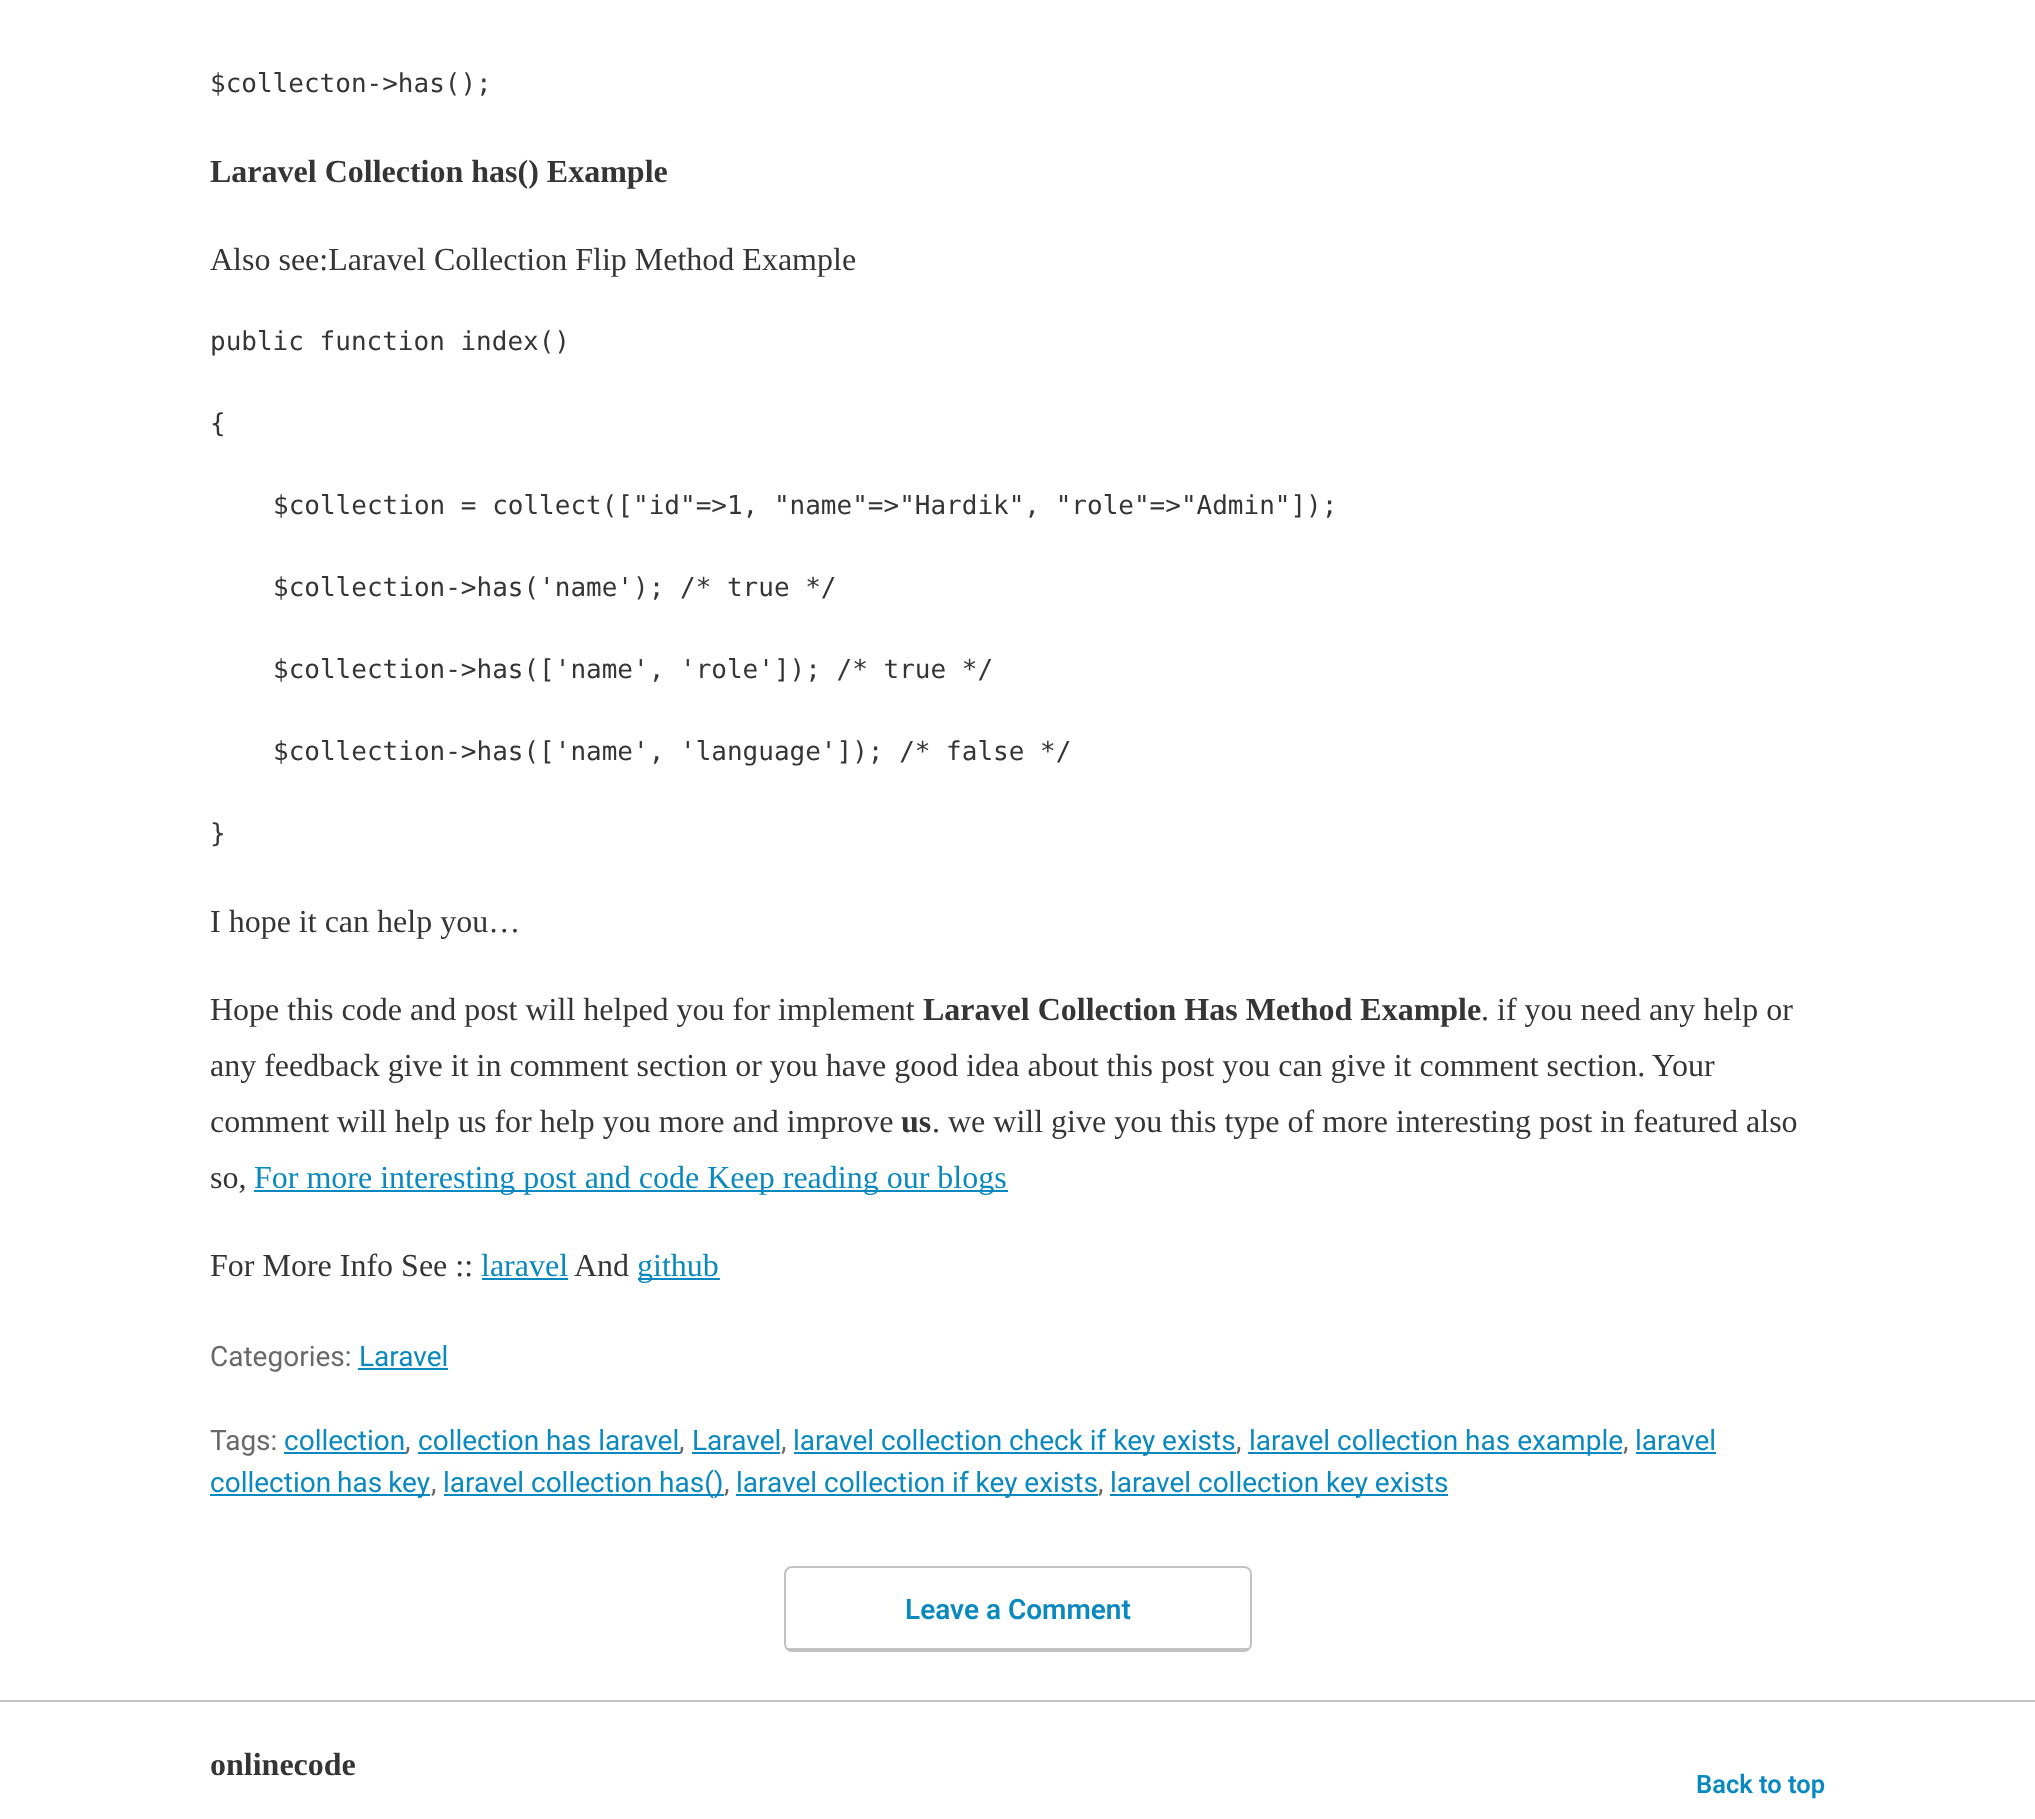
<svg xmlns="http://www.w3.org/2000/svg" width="2035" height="1819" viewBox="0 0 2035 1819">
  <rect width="100%" height="100%" fill="rgb(255,255,255)"/>
  <text x="210" y="92" font-family="DejaVu Sans Mono" font-size="26" fill="rgb(53,53,53)">$collecton-&gt;has();</text>
  <text x="210" y="182" font-family="Liberation Serif" font-size="32" font-weight="bold" fill="rgb(53,53,53)">Laravel Collection has() Example</text>
  <text x="210" y="270" font-family="Liberation Serif" font-size="32" fill="rgb(53,53,53)">Also see:Laravel Collection Flip Method Example</text>
  <g font-family="DejaVu Sans Mono" font-size="26" fill="rgb(53,53,53)">
    <text x="210" y="350">public function index()</text>
    <text x="210" y="432">{</text>
    <text x="273" y="514">$collection = collect(["id"=&gt;1, "name"=&gt;"Hardik", "role"=&gt;"Admin"]);</text>
    <text x="273" y="596">$collection-&gt;has('name'); /* true */</text>
    <text x="273" y="678">$collection-&gt;has(['name', 'role']); /* true */</text>
    <text x="273" y="760">$collection-&gt;has(['name', 'language']); /* false */</text>
    <text x="210" y="842">}</text>
  </g>
  <g font-family="Liberation Serif" font-size="32" fill="rgb(53,53,53)">
    <text x="210" y="932">I hope it can help you…</text>
    <text x="210" y="1020">Hope this code and post will helped you for implement</text>
  </g>
  <text x="923" y="1020" font-family="Liberation Serif" font-size="32" font-weight="bold" fill="rgb(53,53,53)">Laravel Collection Has Method Example</text>
  <g font-family="Liberation Serif" font-size="32" fill="rgb(53,53,53)">
    <text x="1481" y="1020">. if you need any help or</text>
    <text>
      <tspan x="210" y="1076">any feedback give it in comment section or you have good idea about this post you can give it comment section. Your</tspan>
      <tspan x="210" y="1132">comment will help us for help you more and improve</tspan>
    </text>
  </g>
  <text x="901" y="1132" font-family="Liberation Serif" font-size="32" font-weight="bold" fill="rgb(53,53,53)">us</text>
  <g font-family="Liberation Serif" font-size="32" fill="rgb(53,53,53)">
    <text x="932" y="1132">. we will give you this type of more interesting post in featured also</text>
    <text x="210" y="1188">so,</text>
  </g>
  <rect x="254" y="1190" width="754" height="2" fill="rgb(10,137,192)"/>
  <text x="254" y="1188" font-family="Liberation Serif" font-size="32" fill="rgb(10,137,192)">For more interesting post and code Keep reading our blogs</text>
  <text x="210" y="1276" font-family="Liberation Serif" font-size="32" fill="rgb(53,53,53)">For More Info See ::</text>
  <text x="481" y="1276" font-family="Liberation Serif" font-size="32" fill="rgb(10,137,192)">laravel</text>
  <rect x="482" y="1278" width="86" height="2" fill="rgb(10,137,192)"/>
  <text x="574" y="1276" font-family="Liberation Serif" font-size="32" fill="rgb(53,53,53)">And</text>
  <rect x="638" y="1278" width="82" height="2" fill="rgb(10,137,192)"/>
  <text x="637" y="1276" font-family="Liberation Serif" font-size="32" fill="rgb(10,137,192)">github</text>
  <text x="210" y="1366" font-family="Roboto" font-size="28" fill="rgb(105,105,105)">Categories:</text>
  <text x="359" y="1366" font-family="Roboto" font-size="28" fill="rgb(10,137,192)">Laravel</text>
  <rect x="358" y="1368" width="90" height="2" fill="rgb(10,137,192)"/>
  <text x="210" y="1450" font-family="Roboto" font-size="28" fill="rgb(105,105,105)">Tags:</text>
  <text x="284" y="1450" font-family="Roboto" font-size="28" fill="rgb(10,137,192)">collection</text>
  <rect x="284" y="1452" width="122" height="2" fill="rgb(10,137,192)"/>
  <text x="405" y="1450" font-family="Roboto" font-size="28" fill="rgb(105,105,105)">,</text>
  <text x="418" y="1450" font-family="Roboto" font-size="28" fill="rgb(10,137,192)">collection has laravel</text>
  <rect x="418" y="1452" width="262" height="2" fill="rgb(10,137,192)"/>
  <text x="679" y="1450" font-family="Roboto" font-size="28" fill="rgb(105,105,105)">,</text>
  <text x="692" y="1450" font-family="Roboto" font-size="28" fill="rgb(10,137,192)">Laravel</text>
  <rect x="692" y="1452" width="88" height="2" fill="rgb(10,137,192)"/>
  <text x="781" y="1450" font-family="Roboto" font-size="28" fill="rgb(105,105,105)">,</text>
  <rect x="794" y="1452" width="442" height="2" fill="rgb(10,137,192)"/>
  <text x="793" y="1450" font-family="Roboto" font-size="28" fill="rgb(10,137,192)">laravel collection check if key exists</text>
  <text x="1236" y="1450" font-family="Roboto" font-size="28" fill="rgb(105,105,105)">,</text>
  <rect x="1248" y="1452" width="374" height="2" fill="rgb(10,137,192)"/>
  <text x="1249" y="1450" font-family="Roboto" font-size="28" fill="rgb(10,137,192)">laravel collection has example</text>
  <text x="1623" y="1450" font-family="Roboto" font-size="28" fill="rgb(105,105,105)">,</text>
  <text x="1635" y="1450" font-family="Roboto" font-size="28" fill="rgb(10,137,192)">laravel</text>
  <rect x="1636" y="1452" width="80" height="2" fill="rgb(10,137,192)"/>
  <rect x="210" y="1494" width="220" height="2" fill="rgb(10,137,192)"/>
  <text x="210" y="1492" word-spacing="-1" font-family="Roboto" font-size="28" fill="rgb(10,137,192)">collection has key</text>
  <text x="431" y="1492" font-family="Roboto" font-size="28" fill="rgb(105,105,105)">,</text>
  <rect x="444" y="1494" width="280" height="2" fill="rgb(10,137,192)"/>
  <text x="443" y="1492" font-family="Roboto" font-size="28" fill="rgb(10,137,192)">laravel collection has()</text>
  <text x="724" y="1492" font-family="Roboto" font-size="28" fill="rgb(105,105,105)">,</text>
  <rect x="736" y="1494" width="362" height="2" fill="rgb(10,137,192)"/>
  <text x="736" y="1492" font-family="Roboto" font-size="28" fill="rgb(10,137,192)">laravel collection if key exists</text>
  <text x="1098" y="1492" font-family="Roboto" font-size="28" fill="rgb(105,105,105)">,</text>
  <rect x="1110" y="1494" width="338" height="2" fill="rgb(10,137,192)"/>
  <text x="1110" y="1492" font-family="Roboto" font-size="28" fill="rgb(10,137,192)">laravel collection key exists</text>
  <rect x="785" y="1567" width="466" height="84" rx="7" fill="none" stroke="rgb(194,194,194)" stroke-width="2"/>
  <rect x="788" y="1648" width="460" height="2" fill="rgb(194,194,194)"/>
  <text x="905" y="1619" font-family="Roboto" font-size="28" font-weight="600" fill="rgb(10,137,192)">Leave a Comment</text>
  <rect x="0" y="1700" width="2035" height="2" fill="rgb(194,194,194)"/>
  <text x="210" y="1775" font-family="Liberation Serif" font-size="32" font-weight="bold" fill="rgb(53,53,53)">onlinecode</text>
  <text x="1696" y="1793" font-family="Roboto" font-size="25.5" font-weight="600" fill="rgb(10,137,192)">Back to top</text>
</svg>
